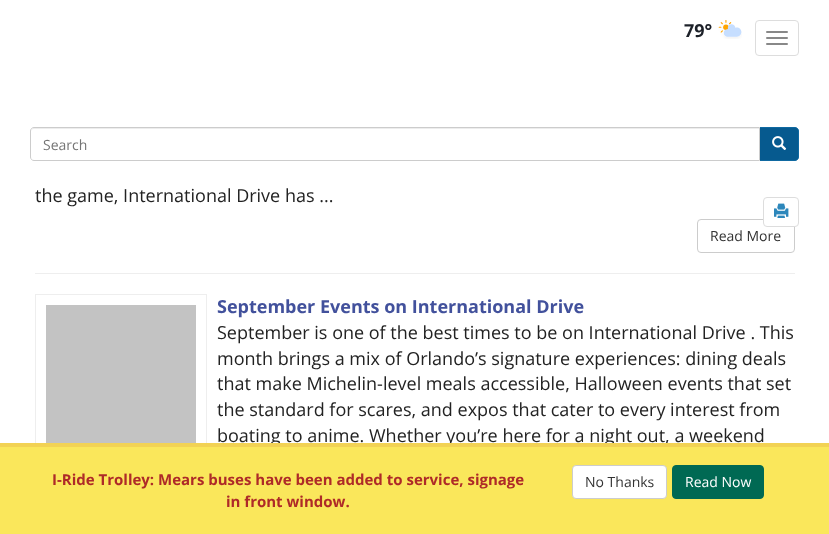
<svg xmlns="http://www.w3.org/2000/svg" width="829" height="534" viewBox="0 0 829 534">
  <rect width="100%" height="100%" fill="rgb(255,255,255)"/>
  <text x="684" y="37" font-family="Open Sans" font-size="18" font-weight="bold" fill="rgb(29,33,41)">79°</text>
  <image x="718" y="20" width="24" height="19" href="pic1.png"/>
  <rect x="755.5" y="20.5" width="43" height="35" rx="3.5" fill="none" stroke="rgb(221,221,221)"/>
  <rect x="766" y="31" width="22" height="2" rx="1" fill="rgb(136,136,136)"/>
  <rect x="766" y="37" width="22" height="2" rx="1" fill="rgb(136,136,136)"/>
  <rect x="766" y="43" width="22" height="2" rx="1" fill="rgb(136,136,136)"/>
  <path d="M759.5 127.5H795C797 127.5 798.5 129 798.5 131V157C798.5 159 797 160.5 795 160.5H759.5Z" fill="rgb(6,90,143)" stroke="rgb(15,105,161)"/>
  <path d="M34 127H760V161H34C32 161 30 159 30 157V131C30 129 32 127 34 127Z" fill="rgb(255,255,255)"/>
  <path d="M34 129H759V128H34C32 128 31 130 31 132C31 130 32 129 34 129Z" fill="rgb(237,237,237)"/>
  <path d="M34 127.5H759.5V160.5H34C32 160.5 30.5 159 30.5 157V131C30.5 129 32 127.5 34 127.5Z" fill="none" stroke="rgb(204,204,204)"/>
  <text x="43" y="150" font-family="Open Sans" font-size="14" fill="rgb(117,117,117)">Search</text>
  <image x="772" y="136" width="15" height="14" href="pic2.png"/>
  <rect x="697.5" y="219.5" width="97" height="33" rx="3.5" fill="none" stroke="rgb(204,204,204)"/>
  <rect x="763.5" y="197.5" width="35" height="29" rx="3.5" fill="rgb(255,255,255)" stroke="rgb(221,221,221)"/>
  <image x="774" y="203" width="15" height="15" href="pic3.png"/>
  <text x="35" y="202" font-family="Open Sans" font-size="18" fill="rgb(34,34,34)">the game, International Drive has ...</text>
  <text x="710" y="241" font-family="Open Sans" font-size="14" fill="rgb(51,51,51)">Read More</text>
  <rect x="35" y="273" width="760" height="1" fill="rgb(238,238,238)"/>
  <rect x="35.5" y="294.5" width="171" height="181" fill="none" stroke="rgb(238,238,238)"/>
  <rect x="46" y="305" width="150" height="138" fill="rgb(195,195,195)"/>
  <text x="217" y="313" font-family="Open Sans" font-size="18" font-weight="bold" fill="rgb(66,81,156)">September Events on International Drive</text>
  <g font-family="Open Sans" font-size="18" fill="rgb(34,34,34)">
    <text>
      <tspan x="217" y="339">September is one of the best times to be on International Drive . This</tspan>
      <tspan x="217" y="365">month brings a mix of Orlando’s signature experiences: dining deals</tspan>
      <tspan x="217" y="390">that make Michelin-level meals accessible, Halloween events that set</tspan>
      <tspan x="217" y="416">the standard for scares, and expos that cater to every interest from</tspan>
      <tspan x="217" y="442">boating to anime. Whether you’re here for a night out, a weekend</tspan>
    </text>
  </g>
  <rect x="0" y="447" width="829" height="87" fill="rgb(250,231,91)"/>
  <rect x="0" y="443" width="829" height="4" fill="rgb(242,210,84)"/>
  <g font-family="Open Sans" font-size="15" font-weight="bold" fill="rgb(174,42,40)">
    <text x="52" y="485">I-Ride Trolley: Mears buses have been added to service, signage</text>
    <text x="226" y="507">in front window.</text>
  </g>
  <rect x="572.5" y="465.5" width="94" height="33" rx="3.5" fill="rgb(255,255,255)" stroke="rgb(204,204,204)"/>
  <text x="585" y="487" font-family="Open Sans" font-size="14" fill="rgb(51,51,51)">No Thanks</text>
  <rect x="672.5" y="465.5" width="91" height="33" rx="3.5" fill="rgb(0,105,83)" stroke="rgb(0,105,83)"/>
  <text x="685" y="487" font-family="Open Sans" font-size="14" fill="rgb(255,255,255)">Read Now</text>
</svg>
